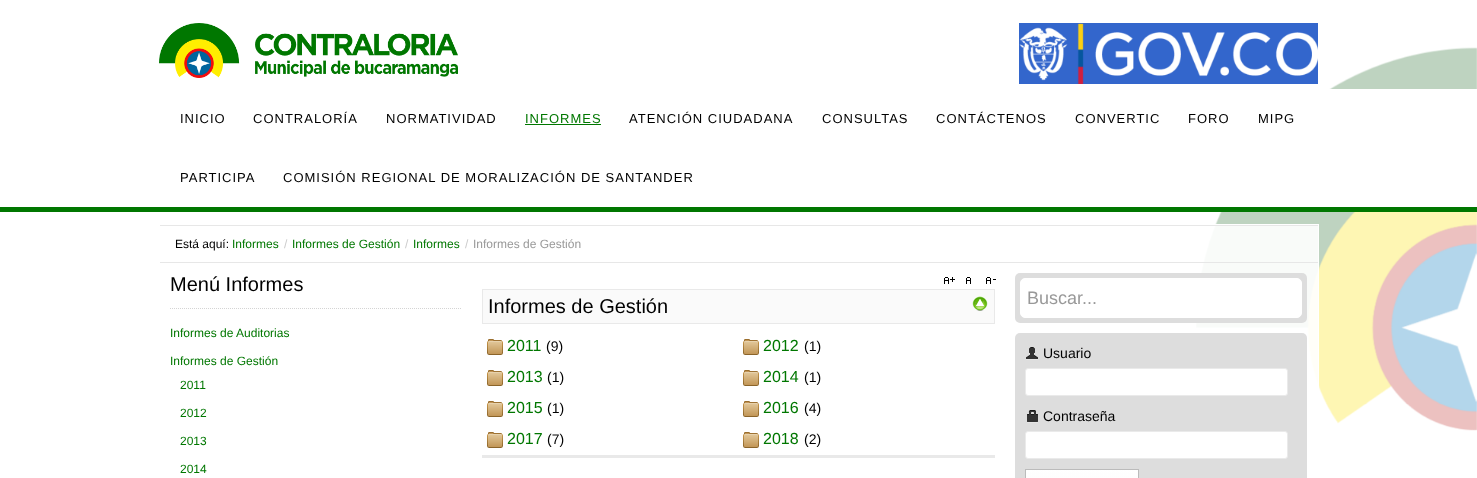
<svg xmlns="http://www.w3.org/2000/svg" width="1477" height="478" viewBox="0 0 1477 478">
  <defs>
    <linearGradient id="g1" gradientUnits="userSpaceOnUse" x1="1082" y1="469" x2="1082" y2="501"><stop offset="0" stop-color="rgb(255,255,255)"/><stop offset="1" stop-color="rgb(250,250,250)"/></linearGradient>
  </defs>
  <rect width="100%" height="100%" fill="rgb(255,255,255)"/>
  <image x="1196" y="47" width="281" height="384" href="pic1.png"/>
  <image x="159" y="23" width="299" height="55" href="pic2.png"/>
  <image x="1019" y="23" width="299" height="61" href="pic3.png"/>
  <rect x="1223" y="89" width="254" height="118" fill="rgb(255,255,255)"/>
  <rect x="0" y="207" width="1477" height="5" fill="rgb(0,119,0)"/>
  <g font-family="Liberation Sans" font-size="13" letter-spacing="1" fill="rgb(0,0,0)">
    <text x="180" y="123">INICIO</text>
    <text x="253" y="123">CONTRALORÍA</text>
    <text x="386" y="123">NORMATIVIDAD</text>
  </g>
  <text x="525" y="123" font-family="Liberation Sans" font-size="13" letter-spacing="1" fill="rgb(0,119,0)">INFORMES</text>
  <rect x="525" y="124" width="76" height="1" fill="rgb(0,119,0)"/>
  <g font-family="Liberation Sans" font-size="13" letter-spacing="1" fill="rgb(0,0,0)">
    <text x="629" y="123">ATENCIÓN CIUDADANA</text>
    <text x="822" y="123">CONSULTAS</text>
    <text x="936" y="123">CONTÁCTENOS</text>
    <text x="1075" y="123">CONVERTIC</text>
    <text x="1188" y="123">FORO</text>
    <text x="1258" y="123">MIPG</text>
    <text x="180" y="182">PARTICIPA</text>
    <text x="283" y="182">COMISIÓN REGIONAL DE MORALIZACIÓN DE SANTANDER</text>
  </g>
  <rect x="1196" y="226" width="122" height="159" fill="rgba(255,255,255,0.9)"/>
  <rect x="159.5" y="224.5" width="1159" height="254" fill="none" stroke="rgb(255,255,255)"/>
  <rect x="160" y="225" width="1158" height="1" fill="rgb(231,231,231)"/>
  <rect x="160" y="262" width="1158" height="1" fill="rgb(231,231,231)"/>
  <text x="175" y="248" font-family="Liberation Sans" font-size="12" fill="rgb(0,0,0)">Está aquí:</text>
  <text x="232" y="248" font-family="Liberation Sans" font-size="12" fill="rgb(0,119,0)">Informes</text>
  <text x="284" y="248" font-family="Liberation Sans" font-size="12" fill="rgb(204,204,204)">/</text>
  <text x="292" y="248" font-family="Liberation Sans" font-size="12" fill="rgb(0,119,0)">Informes de Gestión</text>
  <text x="405" y="248" font-family="Liberation Sans" font-size="12" fill="rgb(204,204,204)">/</text>
  <text x="413" y="248" font-family="Liberation Sans" font-size="12" fill="rgb(0,119,0)">Informes</text>
  <text x="465" y="248" font-family="Liberation Sans" font-size="12" fill="rgb(204,204,204)">/</text>
  <text x="473" y="248" font-family="Liberation Sans" font-size="12" fill="rgb(153,153,153)">Informes de Gestión</text>
  <image x="170" y="308" width="291" height="1" href="pic4.png"/>
  <text x="170" y="291" font-family="Liberation Sans" font-size="20" fill="rgb(0,0,0)">Menú Informes</text>
  <g font-family="Liberation Sans" font-size="12" fill="rgb(0,119,0)">
    <text x="170" y="337">Informes de Auditorias</text>
    <text x="170" y="365">Informes de Gestión</text>
    <text x="180" y="389">2011</text>
    <text x="180" y="417">2012</text>
    <text x="180" y="445">2013</text>
    <text x="180" y="473">2014</text>
  </g>
  <image x="944" y="277" width="11" height="7" href="pic5.png"/>
  <image x="966" y="277" width="5" height="7" href="pic6.png"/>
  <image x="986" y="277" width="10" height="7" href="pic7.png"/>
  <rect x="482.5" y="289.5" width="512" height="34" fill="rgb(250,250,250)" stroke="rgb(233,233,233)"/>
  <text x="488" y="313" font-family="Liberation Sans" font-size="20" fill="rgb(0,0,0)">Informes de Gestión</text>
  <image x="972" y="296" width="16" height="15" href="pic8.png"/>
  <image x="487" y="339" width="16" height="16" href="pic9.png"/>
  <text x="507" y="351" font-family="Liberation Sans" font-size="16" fill="rgb(0,119,0)">2011</text>
  <text x="546" y="351" font-family="Liberation Sans" font-size="14" fill="rgb(0,0,0)">(9)</text>
  <image x="743" y="339" width="16" height="16" href="pic9.png"/>
  <text x="763" y="351" font-family="Liberation Sans" font-size="16" fill="rgb(0,119,0)">2012</text>
  <text x="804" y="351" font-family="Liberation Sans" font-size="14" fill="rgb(0,0,0)">(1)</text>
  <image x="487" y="370" width="16" height="16" href="pic9.png"/>
  <text x="507" y="382" font-family="Liberation Sans" font-size="16" fill="rgb(0,119,0)">2013</text>
  <text x="547" y="382" font-family="Liberation Sans" font-size="14" fill="rgb(0,0,0)">(1)</text>
  <image x="743" y="370" width="16" height="16" href="pic9.png"/>
  <text x="763" y="382" font-family="Liberation Sans" font-size="16" fill="rgb(0,119,0)">2014</text>
  <text x="804" y="382" font-family="Liberation Sans" font-size="14" fill="rgb(0,0,0)">(1)</text>
  <image x="487" y="401" width="16" height="16" href="pic9.png"/>
  <text x="507" y="413" font-family="Liberation Sans" font-size="16" fill="rgb(0,119,0)">2015</text>
  <text x="547" y="413" font-family="Liberation Sans" font-size="14" fill="rgb(0,0,0)">(1)</text>
  <image x="743" y="401" width="16" height="16" href="pic9.png"/>
  <text x="763" y="413" font-family="Liberation Sans" font-size="16" fill="rgb(0,119,0)">2016</text>
  <text x="804" y="413" font-family="Liberation Sans" font-size="14" fill="rgb(0,0,0)">(4)</text>
  <image x="487" y="432" width="16" height="16" href="pic9.png"/>
  <text x="507" y="444" font-family="Liberation Sans" font-size="16" fill="rgb(0,119,0)">2017</text>
  <text x="547" y="444" font-family="Liberation Sans" font-size="14" fill="rgb(0,0,0)">(7)</text>
  <image x="743" y="432" width="16" height="16" href="pic9.png"/>
  <text x="763" y="444" font-family="Liberation Sans" font-size="16" fill="rgb(0,119,0)">2018</text>
  <text x="804" y="444" font-family="Liberation Sans" font-size="14" fill="rgb(0,0,0)">(2)</text>
  <rect x="482" y="455" width="513" height="3" fill="rgb(233,233,233)"/>
  <rect x="1015" y="273" width="292" height="50" rx="5" fill="rgb(221,221,221)"/>
  <rect x="1020.5" y="278.5" width="281" height="39" rx="4.5" fill="rgb(255,255,255)" stroke="rgb(255,255,255)"/>
  <text x="1027" y="304" font-family="Liberation Sans" font-size="18" fill="rgb(153,153,153)">Buscar...</text>
  <rect x="1015" y="333" width="292" height="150" rx="5" fill="rgb(221,221,221)"/>
  <image x="1026" y="347" width="12" height="13" href="pic10.png"/>
  <text x="1043" y="358" font-family="Liberation Sans" font-size="14" fill="rgb(0,0,0)">Usuario</text>
  <rect x="1025.5" y="368.5" width="262" height="27" rx="2.5" fill="rgb(255,255,255)" stroke="rgb(234,234,234)"/>
  <image x="1027" y="410" width="11" height="13" href="pic11.png"/>
  <text x="1043" y="421" font-family="Liberation Sans" font-size="14" fill="rgb(0,0,0)">Contraseña</text>
  <rect x="1025.5" y="431.5" width="262" height="27" rx="2.5" fill="rgb(255,255,255)" stroke="rgb(234,234,234)"/>
  <rect x="1026" y="470" width="112" height="8" fill="url(#g1)"/>
  <rect x="1025.5" y="469.5" width="113" height="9" fill="none" stroke="rgb(187,187,187)"/>
</svg>
